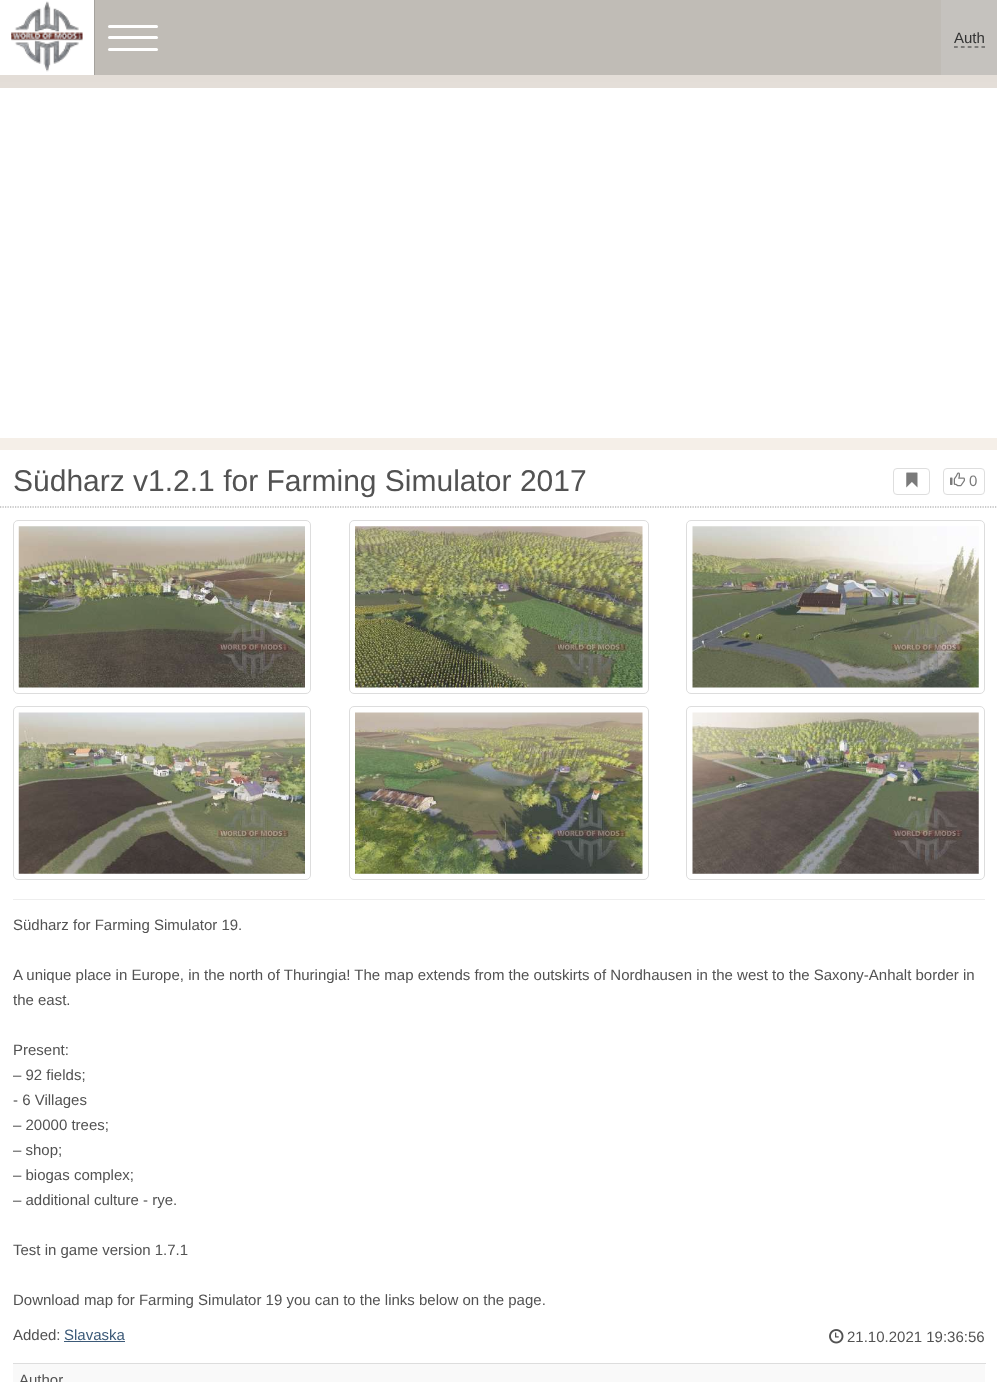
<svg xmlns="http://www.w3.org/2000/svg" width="997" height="1382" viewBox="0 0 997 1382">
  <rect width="100%" height="100%" fill="rgb(245,239,232)"/>
  <image x="0" y="75" width="997" height="13" href="pic1.png"/>
  <rect x="0" y="0" width="94" height="75" fill="rgb(255,255,255)"/>
  <rect x="94" y="0" width="1" height="75" fill="rgb(165,162,157)"/>
  <image x="11" y="1" width="72" height="71" href="pic2.png"/>
  <rect x="95" y="0" width="846" height="75" fill="rgb(192,188,182)"/>
  <rect x="108" y="25" width="50" height="3" rx="1.5" fill="rgb(255,255,255)"/>
  <rect x="108" y="36" width="50" height="3" rx="1.5" fill="rgb(255,255,255)"/>
  <rect x="108" y="48" width="50" height="3" rx="1.5" fill="rgb(255,255,255)"/>
  <rect x="941" y="0" width="56" height="75" fill="rgb(197,194,190)"/>
  <text x="954" y="43" font-family="Liberation Sans" font-size="15" fill="rgb(51,51,51)">Auth</text>
  <path d="M954 47H985" fill="none" stroke="rgb(51,51,51)" stroke-width="1.2" stroke-dasharray="3.75 3.12"/>
  <rect x="0" y="88" width="997" height="350" fill="rgb(255,255,255)"/>
  <rect x="0" y="450" width="997" height="932" fill="rgb(255,255,255)"/>
  <text x="13" y="491" font-family="Liberation Sans" font-size="30" fill="rgb(82,82,82)">Südharz v1.2.1 for Farming Simulator 2017</text>
  <rect x="893.5" y="468.5" width="36" height="26" rx="3.5" fill="none" stroke="rgb(222,222,222)"/>
  <image x="906" y="472" width="12" height="16" href="pic3.png"/>
  <rect x="943.5" y="468.5" width="41" height="26" rx="3.5" fill="none" stroke="rgb(222,222,222)"/>
  <image x="950" y="472" width="15" height="15" href="pic4.png"/>
  <text x="969" y="486" font-family="Liberation Sans" font-size="15" fill="rgb(122,122,122)">0</text>
  <path d="M0 507H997.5" fill="none" stroke="rgb(153,153,153)" stroke-width="1.2" stroke-dasharray="1.25 1.25"/>
  <rect x="13.5" y="520.5" width="297" height="173" rx="4.5" fill="none" stroke="rgb(221,221,221)"/>
  <image x="18" y="526" width="287" height="162" href="pic5.png"/>
  <rect x="349.5" y="520.5" width="299" height="173" rx="4.5" fill="none" stroke="rgb(221,221,221)"/>
  <image x="355" y="526" width="288" height="162" href="pic6.png"/>
  <rect x="686.5" y="520.5" width="298" height="173" rx="4.5" fill="none" stroke="rgb(221,221,221)"/>
  <image x="692" y="526" width="287" height="162" href="pic7.png"/>
  <rect x="13.5" y="706.5" width="297" height="173" rx="4.5" fill="none" stroke="rgb(221,221,221)"/>
  <image x="18" y="712" width="287" height="162" href="pic8.png"/>
  <rect x="349.5" y="706.5" width="299" height="173" rx="4.5" fill="none" stroke="rgb(221,221,221)"/>
  <image x="355" y="712" width="288" height="162" href="pic9.png"/>
  <rect x="686.5" y="706.5" width="298" height="173" rx="4.5" fill="none" stroke="rgb(221,221,221)"/>
  <image x="692" y="712" width="287" height="162" href="pic10.png"/>
  <rect x="13" y="899" width="972" height="1" fill="rgb(238,238,238)"/>
  <g font-family="Liberation Sans" font-size="15" fill="rgb(82,82,82)">
    <text x="13" y="930">Südharz for Farming Simulator 19.</text>
    <text>
      <tspan x="13" y="980">A unique place in Europe, in the north of Thuringia! The map extends from the outskirts of Nordhausen in the west to the Saxony-Anhalt border in</tspan>
      <tspan x="13" y="1005">the east.</tspan>
    </text>
    <text>
      <tspan x="13" y="1055">Present:</tspan>
      <tspan x="13" y="1080">– 92 fields;</tspan>
      <tspan x="13" y="1105">- 6 Villages</tspan>
      <tspan x="13" y="1130">– 20000 trees;</tspan>
      <tspan x="13" y="1155">– shop;</tspan>
      <tspan x="13" y="1180">– biogas complex;</tspan>
      <tspan x="13" y="1205">– additional culture - rye.</tspan>
    </text>
    <text x="13" y="1255">Test in game version 1.7.1</text>
    <text x="13" y="1305">Download map for Farming Simulator 19 you can to the links below on the page.</text>
    <text x="13" y="1340">Added:</text>
  </g>
  <text x="64" y="1340" font-family="Liberation Sans" font-size="15" fill="rgb(60,90,120)">Slavaska</text>
  <rect x="64" y="1341" width="61" height="1" fill="rgb(60,90,120)"/>
  <image x="829" y="1329" width="15" height="15" href="pic11.png"/>
  <text x="847" y="1342" font-family="Liberation Sans" font-size="15" fill="rgb(82,82,82)">21.10.2021 19:36:56</text>
  <rect x="13" y="1364" width="972" height="18" fill="rgb(249,249,249)"/>
  <rect x="13" y="1363" width="973" height="1" fill="rgb(221,221,221)"/>
  <text x="19" y="1385" font-family="Liberation Sans" font-size="15" fill="rgb(82,82,82)">Author</text>
</svg>
